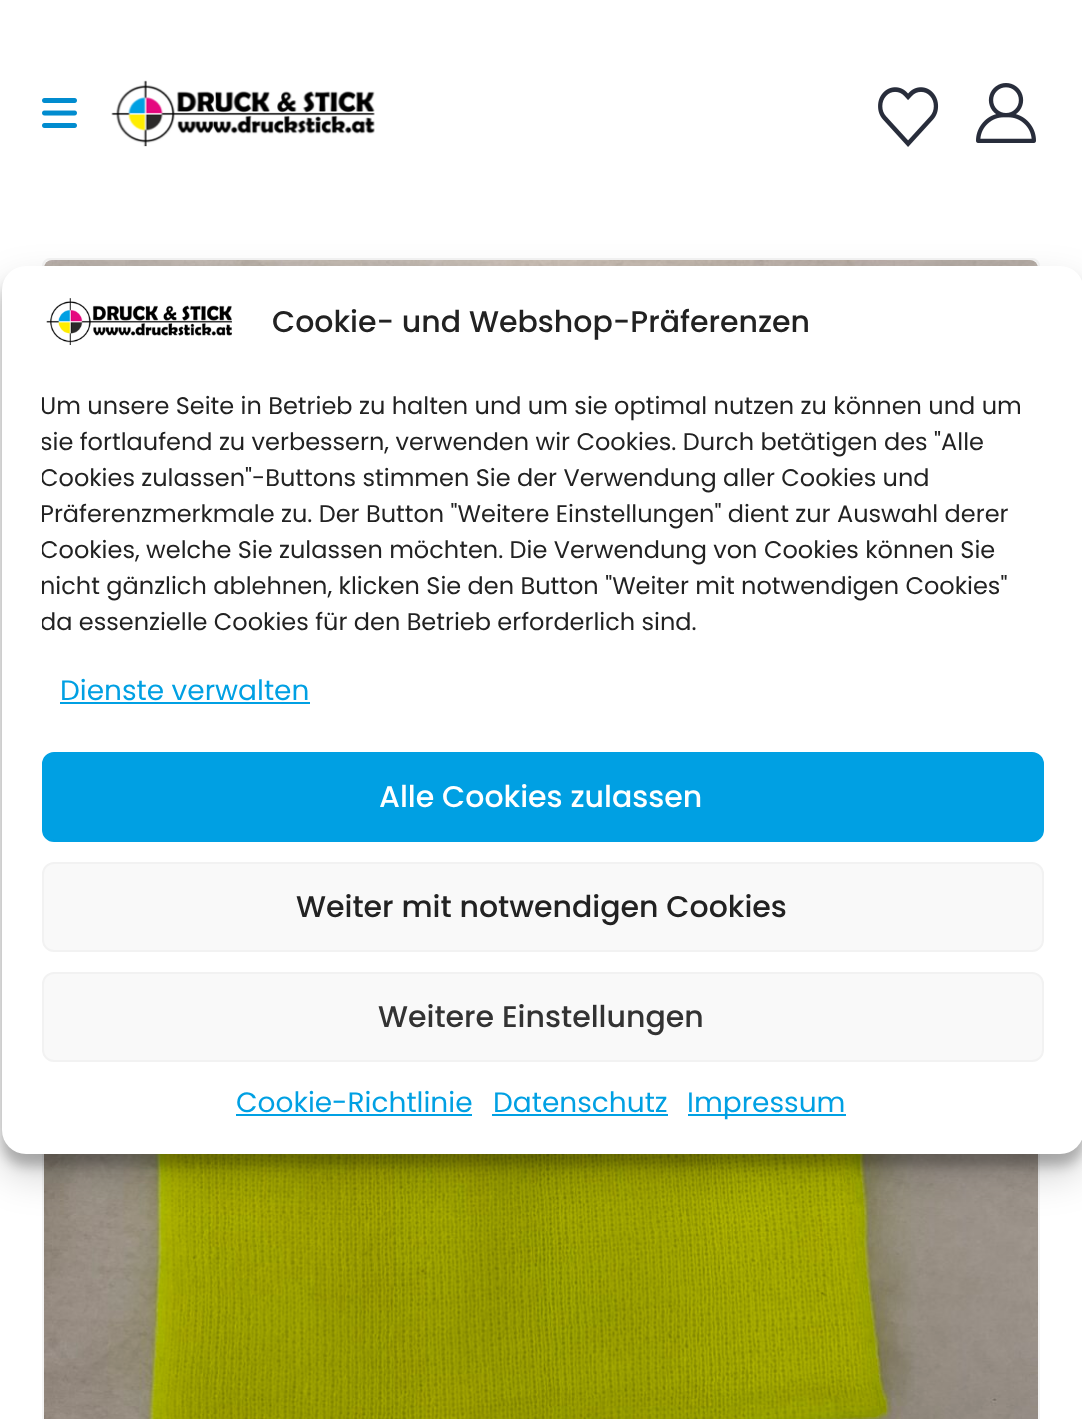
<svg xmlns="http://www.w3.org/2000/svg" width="1082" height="1419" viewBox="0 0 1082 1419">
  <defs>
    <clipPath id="clip1"><rect x="42" y="388" width="1002" height="262"/></clipPath>
  </defs>
  <rect width="100%" height="100%" fill="rgb(255,255,255)"/>
  <image x="42" y="98" width="35" height="30" href="pic1.png"/>
  <image x="111" y="80" width="264" height="67" href="pic2.png"/>
  <image x="878" y="87" width="61" height="60" href="pic3.png"/>
  <image x="976" y="83" width="60" height="60" href="pic4.png"/>
  <rect x="43" y="259" width="996" height="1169" rx="7" fill="none" stroke="rgb(244,244,244)" stroke-width="2"/>
  <image x="44" y="260" width="994" height="1159" href="pic5.png"/>
  <rect x="2" y="278" width="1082" height="888" rx="24" fill="rgba(0,0,0,0.23)" filter="blur(6px)"/>
  <rect x="2" y="286" width="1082" height="888" rx="24" fill="rgba(0,0,0,0.19)" filter="blur(20px)"/>
  <rect x="2" y="266" width="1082" height="888" rx="24" fill="rgb(255,255,255)"/>
  <image x="46" y="298" width="186" height="47" href="pic6.png"/>
  <text x="272" y="332" font-family="Poppins" font-size="30" font-weight="500" fill="rgb(34,34,34)">Cookie- und Webshop-Präferenzen</text>
  <g clip-path="url(#clip1)">
    <g font-family="Poppins" font-size="24" fill="rgb(34,34,34)">
      <text>
        <tspan x="40" y="414">Um unsere Seite in Betrieb zu halten und um sie optimal nutzen zu können und um</tspan>
        <tspan x="40" y="450">sie fortlaufend zu verbessern, verwenden wir Cookies. Durch betätigen des "Alle</tspan>
        <tspan x="40" y="486">Cookies zulassen"-Buttons stimmen Sie der Verwendung aller Cookies und</tspan>
        <tspan x="40" y="522">Präferenzmerkmale zu. Der Button "Weitere Einstellungen" dient zur Auswahl derer</tspan>
        <tspan x="40" y="558">Cookies, welche Sie zulassen möchten. Die Verwendung von Cookies können Sie</tspan>
        <tspan x="40" y="594">nicht gänzlich ablehnen, klicken Sie den Button "Weiter mit notwendigen Cookies"</tspan>
        <tspan x="40" y="630">da essenzielle Cookies für den Betrieb erforderlich sind.</tspan>
      </text>
    </g>
  </g>
  <text x="60" y="700" font-family="Poppins" font-size="28" fill="rgb(0,160,227)">Dienste verwalten</text>
  <rect x="60" y="702" width="250" height="2" fill="rgb(0,160,227)"/>
  <rect x="43" y="753" width="1000" height="88" rx="11" fill="rgb(0,160,227)" stroke="rgb(0,160,227)" stroke-width="2"/>
  <text x="379" y="807" font-family="Poppins" font-size="30" font-weight="500" fill="rgb(255,255,255)">Alle Cookies zulassen</text>
  <rect x="43" y="863" width="1000" height="88" rx="11" fill="rgb(249,249,249)" stroke="rgb(242,242,242)" stroke-width="2"/>
  <text x="296" y="917" font-family="Poppins" font-size="30" font-weight="500" fill="rgb(34,34,34)">Weiter mit notwendigen Cookies</text>
  <rect x="43" y="973" width="1000" height="88" rx="11" fill="rgb(249,249,249)" stroke="rgb(242,242,242)" stroke-width="2"/>
  <text x="378" y="1027" font-family="Poppins" font-size="30" font-weight="500" fill="rgb(51,51,51)">Weitere Einstellungen</text>
  <text x="236" y="1112" font-family="Poppins" font-size="28" fill="rgb(0,160,227)">Cookie-Richtlinie</text>
  <rect x="236" y="1114" width="236" height="2" fill="rgb(0,160,227)"/>
  <text x="493" y="1112" font-family="Poppins" font-size="28" fill="rgb(0,160,227)">Datenschutz</text>
  <rect x="492" y="1114" width="176" height="2" fill="rgb(0,160,227)"/>
  <rect x="688" y="1114" width="158" height="2" fill="rgb(0,160,227)"/>
  <text x="687" y="1112" font-family="Poppins" font-size="28" fill="rgb(0,160,227)">Impressum</text>
</svg>
